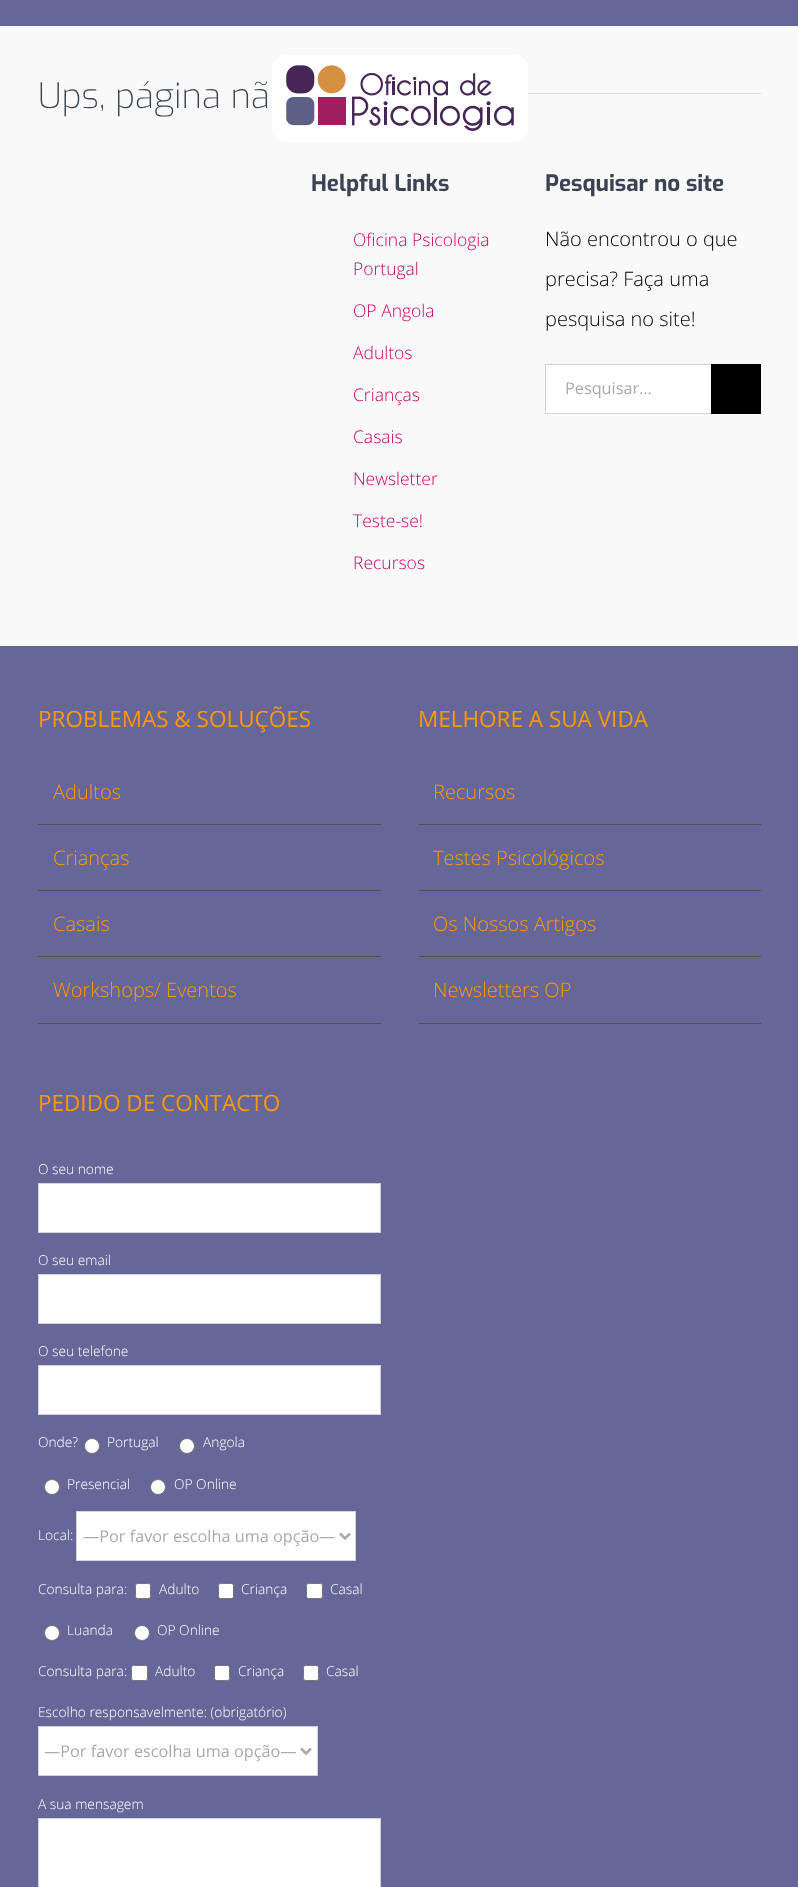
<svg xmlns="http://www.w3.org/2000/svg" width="798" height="1887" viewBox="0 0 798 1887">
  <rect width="100%" height="100%" fill="rgb(249,249,249)"/>
  <rect x="0" y="0" width="798" height="26" fill="rgb(102,102,153)"/>
  <image x="271" y="55" width="257" height="87" href="pic1.png"/>
  <text x="38" y="108" font-family="Exo" font-size="35" font-weight="200" fill="rgb(59,66,81)">Ups, página nã</text>
  <rect x="528" y="93" width="233" height="1" fill="rgb(224,222,222)"/>
  <text x="311" y="191" font-family="Exo" font-size="22.5" font-weight="bold" fill="rgb(59,66,81)">Helpful Links</text>
  <g font-family="Open Sans" font-size="17.5" font-weight="300" fill="rgb(204,0,102)">
    <text>
      <tspan x="353" y="246">Oficina Psicologia</tspan>
      <tspan x="353" y="275">Portugal</tspan>
    </text>
    <text x="353" y="317">OP Angola</text>
    <text x="353" y="359">Adultos</text>
    <text x="353" y="401">Crianças</text>
    <text x="353" y="443">Casais</text>
    <text x="353" y="485">Newsletter</text>
    <text x="353" y="527">Teste-se!</text>
    <text x="353" y="569">Recursos</text>
  </g>
  <text x="545" y="191" font-family="Exo" font-size="22.5" font-weight="bold" fill="rgb(59,66,81)">Pesquisar no site</text>
  <g font-family="Open Sans" font-size="20" font-weight="300" fill="rgb(0,0,0)">
    <text x="545" y="246">Não encontrou o que</text>
    <text x="545" y="286">precisa? Faça uma</text>
    <text x="545" y="326">pesquisa no site!</text>
  </g>
  <rect x="546" y="365" width="165" height="48" fill="rgb(255,255,255)"/>
  <rect x="545" y="364" width="166" height="1" fill="rgb(210,210,210)"/>
  <rect x="545" y="413" width="166" height="1" fill="rgb(210,210,210)"/>
  <rect x="545" y="364" width="1" height="50" fill="rgb(210,210,210)"/>
  <text x="565" y="394" font-family="Open Sans" font-size="16.25" fill="rgb(170,169,169)">Pesquisar...</text>
  <rect x="711" y="364" width="50" height="50" fill="rgb(0,0,0)"/>
  <rect x="0" y="646" width="798" height="1241" fill="rgb(102,102,153)"/>
  <text x="38" y="727" font-family="Open Sans" font-size="22.5" fill="rgb(255,153,0)">PROBLEMAS &amp; SOLUÇÕES</text>
  <rect x="38" y="824" width="343" height="1" fill="rgb(80,81,82)"/>
  <text x="53" y="799" font-family="Open Sans" font-size="20" font-weight="300" fill="rgb(255,153,0)">Adultos</text>
  <rect x="38" y="890" width="343" height="1" fill="rgb(80,81,82)"/>
  <text x="53" y="865" font-family="Open Sans" font-size="20" font-weight="300" fill="rgb(255,153,0)">Crianças</text>
  <rect x="38" y="956" width="343" height="1" fill="rgb(80,81,82)"/>
  <text x="53" y="931" font-family="Open Sans" font-size="20" font-weight="300" fill="rgb(255,153,0)">Casais</text>
  <rect x="38" y="1023" width="343" height="1" fill="rgb(80,81,82)"/>
  <text x="53" y="997" font-family="Open Sans" font-size="20" font-weight="300" fill="rgb(255,153,0)">Workshops/ Eventos</text>
  <text x="38" y="1111" font-family="Open Sans" font-size="22.5" fill="rgb(255,153,0)">PEDIDO DE CONTACTO</text>
  <text x="38" y="1174" font-family="Open Sans" font-size="13.75" font-weight="300" fill="rgb(255,255,255)">O seu nome</text>
  <rect x="38.5" y="1183.5" width="342" height="49" fill="rgb(255,255,255)" stroke="rgb(210,210,210)"/>
  <text x="38" y="1265" font-family="Open Sans" font-size="13.75" font-weight="300" fill="rgb(255,255,255)">O seu email</text>
  <rect x="38.5" y="1274.5" width="342" height="49" fill="rgb(255,255,255)" stroke="rgb(210,210,210)"/>
  <text x="38" y="1356" font-family="Open Sans" font-size="13.75" font-weight="300" fill="rgb(255,255,255)">O seu telefone</text>
  <rect x="38.5" y="1365.5" width="342" height="49" fill="rgb(255,255,255)" stroke="rgb(210,210,210)"/>
  <text x="38" y="1447" font-family="Open Sans" font-size="13.75" font-weight="300" fill="rgb(255,255,255)">Onde?</text>
  <circle cx="92" cy="1446" r="7.5" fill="rgb(255,255,255)" stroke="rgb(118,118,118)"/>
  <text x="107" y="1447" font-family="Open Sans" font-size="13.75" font-weight="300" fill="rgb(255,255,255)">Portugal</text>
  <circle cx="187" cy="1446" r="7.5" fill="rgb(255,255,255)" stroke="rgb(118,118,118)"/>
  <text x="203" y="1447" font-family="Open Sans" font-size="13.75" font-weight="300" fill="rgb(255,255,255)">Angola</text>
  <circle cx="52" cy="1487" r="7.5" fill="rgb(255,255,255)" stroke="rgb(118,118,118)"/>
  <text x="67" y="1489" font-family="Open Sans" font-size="13.75" font-weight="300" fill="rgb(255,255,255)">Presencial</text>
  <circle cx="158" cy="1487" r="7.5" fill="rgb(255,255,255)" stroke="rgb(118,118,118)"/>
  <g font-family="Open Sans" font-size="13.75" font-weight="300" fill="rgb(255,255,255)">
    <text x="174" y="1489">OP Online</text>
    <text x="38" y="1540">Local:</text>
  </g>
  <rect x="76.5" y="1511.5" width="279" height="49" fill="rgb(255,255,255)" stroke="rgb(210,210,210)"/>
  <path d="M340 1533.5L345 1538.5L350 1533.5" fill="none" stroke="rgb(170,169,169)" stroke-width="2.5"/>
  <text x="83" y="1542" font-family="Open Sans" font-size="16.25" fill="rgb(170,169,169)">—Por favor escolha uma opção—</text>
  <text x="38" y="1594" font-family="Open Sans" font-size="13.75" font-weight="300" fill="rgb(255,255,255)">Consulta para:</text>
  <rect x="135.5" y="1583.5" width="15" height="15" rx="2" fill="rgb(255,255,255)" stroke="rgb(118,118,118)"/>
  <text x="159" y="1594" font-family="Open Sans" font-size="13.75" font-weight="300" fill="rgb(255,255,255)">Adulto</text>
  <rect x="218.5" y="1583.5" width="15" height="15" rx="2" fill="rgb(255,255,255)" stroke="rgb(118,118,118)"/>
  <text x="241" y="1594" font-family="Open Sans" font-size="13.75" font-weight="300" fill="rgb(255,255,255)">Criança</text>
  <rect x="306.5" y="1583.5" width="16" height="15" rx="2" fill="rgb(255,255,255)" stroke="rgb(118,118,118)"/>
  <text x="330" y="1594" font-family="Open Sans" font-size="13.75" font-weight="300" fill="rgb(255,255,255)">Casal</text>
  <circle cx="52" cy="1633" r="7.5" fill="rgb(255,255,255)" stroke="rgb(118,118,118)"/>
  <text x="67" y="1635" font-family="Open Sans" font-size="13.75" font-weight="300" fill="rgb(255,255,255)">Luanda</text>
  <circle cx="142" cy="1633" r="7.5" fill="rgb(255,255,255)" stroke="rgb(118,118,118)"/>
  <g font-family="Open Sans" font-size="13.75" font-weight="300" fill="rgb(255,255,255)">
    <text x="157" y="1635">OP Online</text>
    <text x="38" y="1676">Consulta para:</text>
  </g>
  <rect x="131.5" y="1665.5" width="16" height="15" rx="2" fill="rgb(255,255,255)" stroke="rgb(118,118,118)"/>
  <text x="155" y="1676" font-family="Open Sans" font-size="13.75" font-weight="300" fill="rgb(255,255,255)">Adulto</text>
  <rect x="214.5" y="1665.5" width="15" height="15" rx="2" fill="rgb(255,255,255)" stroke="rgb(118,118,118)"/>
  <text x="238" y="1676" font-family="Open Sans" font-size="13.75" font-weight="300" fill="rgb(255,255,255)">Criança</text>
  <rect x="303.5" y="1665.5" width="15" height="15" rx="2" fill="rgb(255,255,255)" stroke="rgb(118,118,118)"/>
  <g font-family="Open Sans" font-size="13.75" font-weight="300" fill="rgb(255,255,255)">
    <text x="326" y="1676">Casal</text>
    <text x="38" y="1717">Escolho responsavelmente: (obrigatório)</text>
  </g>
  <rect x="38.5" y="1726.5" width="279" height="49" fill="rgb(255,255,255)" stroke="rgb(210,210,210)"/>
  <path d="M301 1748.5L306 1753.5L311 1748.5" fill="none" stroke="rgb(170,169,169)" stroke-width="2.5"/>
  <text x="44" y="1757" font-family="Open Sans" font-size="16.25" fill="rgb(170,169,169)">—Por favor escolha uma opção—</text>
  <text x="38" y="1809" font-family="Open Sans" font-size="13.75" font-weight="300" fill="rgb(255,255,255)">A sua mensagem</text>
  <rect x="38.5" y="1818.5" width="342" height="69" fill="rgb(255,255,255)" stroke="rgb(210,210,210)"/>
  <text x="418" y="727" font-family="Open Sans" font-size="22.5" fill="rgb(255,153,0)">MELHORE A SUA VIDA</text>
  <rect x="419" y="824" width="342" height="1" fill="rgb(80,81,82)"/>
  <text x="433" y="799" font-family="Open Sans" font-size="20" font-weight="300" fill="rgb(255,153,0)">Recursos</text>
  <rect x="419" y="890" width="342" height="1" fill="rgb(80,81,82)"/>
  <text x="433" y="865" font-family="Open Sans" font-size="20" font-weight="300" fill="rgb(255,153,0)">Testes Psicológicos</text>
  <rect x="419" y="956" width="342" height="1" fill="rgb(80,81,82)"/>
  <text x="433" y="931" font-family="Open Sans" font-size="20" font-weight="300" fill="rgb(255,153,0)">Os Nossos Artigos</text>
  <rect x="419" y="1023" width="342" height="1" fill="rgb(80,81,82)"/>
  <text x="433" y="997" font-family="Open Sans" font-size="20" font-weight="300" fill="rgb(255,153,0)">Newsletters OP</text>
</svg>
